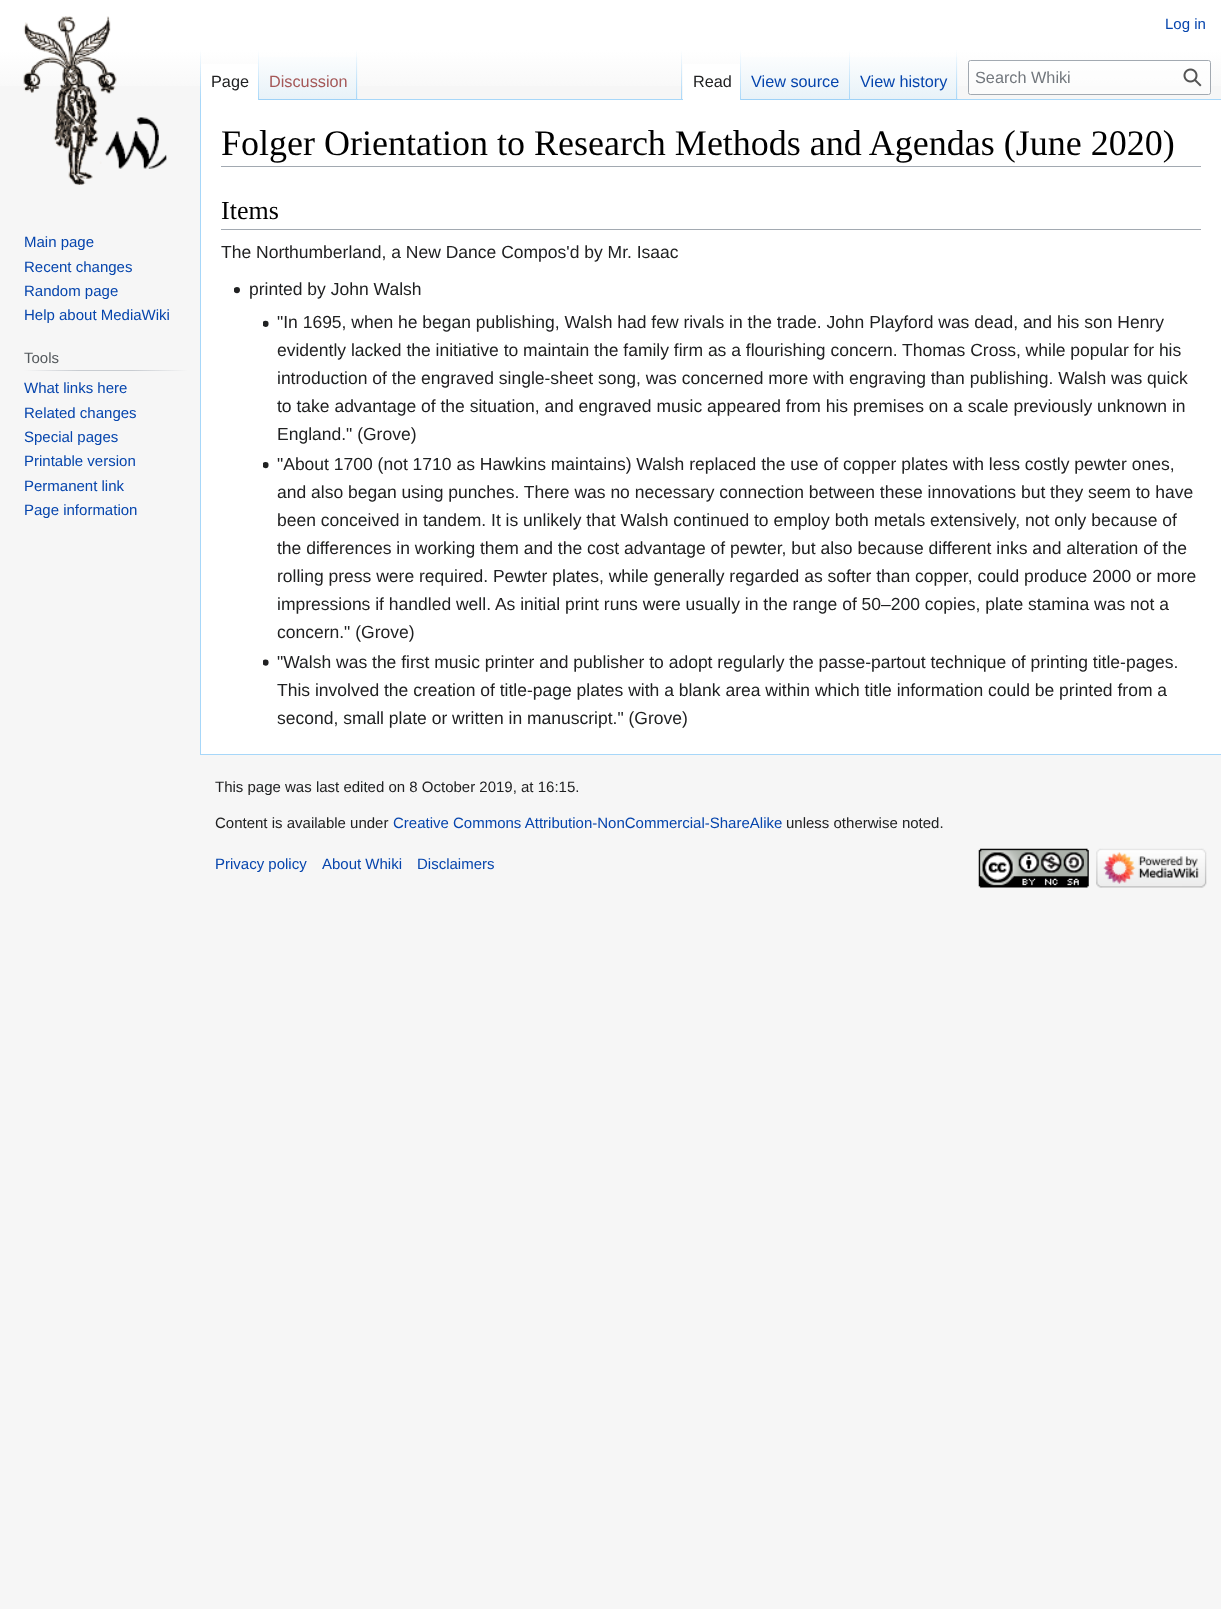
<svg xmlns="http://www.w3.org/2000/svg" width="1221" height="1609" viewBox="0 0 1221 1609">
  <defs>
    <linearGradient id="g1" gradientUnits="userSpaceOnUse" x1="611" y1="0" x2="611" y2="100"><stop offset="0.5" stop-color="rgb(255,255,255)"/><stop offset="1" stop-color="rgb(246,246,246)"/></linearGradient>
    <linearGradient id="g2" gradientUnits="userSpaceOnUse" x1="201" y1="50" x2="201" y2="100"><stop offset="0" stop-color="rgb(167,215,249)" stop-opacity="0"/><stop offset="1" stop-color="rgb(167,215,249)"/></linearGradient>
    <linearGradient id="g3" gradientUnits="userSpaceOnUse" x1="258" y1="50" x2="258" y2="100"><stop offset="0" stop-color="rgb(255,255,255)"/><stop offset="1" stop-color="rgb(167,215,249)"/></linearGradient>
    <linearGradient id="g4" gradientUnits="userSpaceOnUse" x1="308" y1="100" x2="308" y2="50"><stop offset="0" stop-color="rgb(119,193,246)"/><stop offset="0.03" stop-color="rgb(232,242,248)"/><stop offset="1" stop-color="rgb(255,255,255)"/></linearGradient>
    <linearGradient id="g5" gradientUnits="userSpaceOnUse" x1="357" y1="50" x2="357" y2="100"><stop offset="0" stop-color="rgb(167,215,249)" stop-opacity="0"/><stop offset="1" stop-color="rgb(167,215,249)"/></linearGradient>
    <linearGradient id="g6" gradientUnits="userSpaceOnUse" x1="682" y1="50" x2="682" y2="100"><stop offset="0" stop-color="rgb(167,215,249)" stop-opacity="0"/><stop offset="1" stop-color="rgb(167,215,249)"/></linearGradient>
    <linearGradient id="g7" gradientUnits="userSpaceOnUse" x1="741" y1="50" x2="741" y2="100"><stop offset="0" stop-color="rgb(255,255,255)"/><stop offset="1" stop-color="rgb(167,215,249)"/></linearGradient>
    <linearGradient id="g8" gradientUnits="userSpaceOnUse" x1="796" y1="100" x2="796" y2="50"><stop offset="0" stop-color="rgb(119,193,246)"/><stop offset="0.03" stop-color="rgb(232,242,248)"/><stop offset="1" stop-color="rgb(255,255,255)"/></linearGradient>
    <linearGradient id="g9" gradientUnits="userSpaceOnUse" x1="849" y1="50" x2="849" y2="100"><stop offset="0" stop-color="rgb(167,215,249)" stop-opacity="0"/><stop offset="1" stop-color="rgb(167,215,249)"/></linearGradient>
    <linearGradient id="g10" gradientUnits="userSpaceOnUse" x1="904" y1="100" x2="904" y2="50"><stop offset="0" stop-color="rgb(119,193,246)"/><stop offset="0.03" stop-color="rgb(232,242,248)"/><stop offset="1" stop-color="rgb(255,255,255)"/></linearGradient>
    <linearGradient id="g11" gradientUnits="userSpaceOnUse" x1="957" y1="50" x2="957" y2="100"><stop offset="0" stop-color="rgb(167,215,249)" stop-opacity="0"/><stop offset="1" stop-color="rgb(167,215,249)"/></linearGradient>
    <linearGradient id="g12" gradientUnits="userSpaceOnUse" x1="24" y1="371" x2="188" y2="371"><stop offset="0" stop-color="rgb(246,246,246)"/><stop offset="0.33" stop-color="rgb(200,204,209)"/><stop offset="0.66" stop-color="rgb(200,204,209)"/><stop offset="1" stop-color="rgb(246,246,246)"/></linearGradient>
  </defs>
  <rect width="100%" height="100%" fill="rgb(246,246,246)"/>
  <rect x="0" y="0" width="1221" height="86" fill="url(#g1)"/>
  <text x="1165" y="29" font-family="Liberation Sans" font-size="15" fill="rgb(6,69,173)">Log in</text>
  <rect x="200" y="754" width="1021" height="1" fill="rgb(167,215,249)"/>
  <rect x="200" y="99" width="1" height="656" fill="rgb(167,215,249)"/>
  <rect x="200" y="50" width="1" height="50" fill="url(#g2)"/>
  <rect x="201" y="64" width="57" height="36" fill="rgb(255,255,255)"/>
  <rect x="258" y="50" width="1" height="50" fill="url(#g3)"/>
  <text x="211" y="87" font-family="Liberation Sans" font-size="16.25" fill="rgb(32,33,34)">Page</text>
  <rect x="259" y="57" width="99" height="43" fill="url(#g4)"/>
  <rect x="356" y="50" width="1" height="50" fill="url(#g5)"/>
  <text x="269" y="87" font-family="Liberation Sans" font-size="16.25" fill="rgb(165,88,88)">Discussion</text>
  <rect x="358" y="99" width="863" height="1" fill="rgb(167,215,249)"/>
  <rect x="681" y="50" width="1" height="50" fill="url(#g6)"/>
  <rect x="683" y="64" width="57" height="36" fill="rgb(255,255,255)"/>
  <rect x="740" y="50" width="1" height="50" fill="url(#g7)"/>
  <text x="693" y="87" font-family="Liberation Sans" font-size="16.25" fill="rgb(32,33,34)">Read</text>
  <rect x="741" y="57" width="109" height="43" fill="url(#g8)"/>
  <rect x="849" y="50" width="1" height="50" fill="url(#g9)"/>
  <text x="751" y="87" font-family="Liberation Sans" font-size="16.25" fill="rgb(6,69,173)">View source</text>
  <rect x="850" y="57" width="108" height="43" fill="url(#g10)"/>
  <rect x="956" y="50" width="1" height="50" fill="url(#g11)"/>
  <text x="860" y="87" font-family="Liberation Sans" font-size="16.25" fill="rgb(6,69,173)">View history</text>
  <rect x="968.5" y="60.5" width="242" height="34" rx="2" fill="rgba(255,255,255,0.5)" stroke="rgb(162,169,177)"/>
  <text x="975" y="83" font-family="Liberation Sans" font-size="16.25" fill="rgb(114,119,125)">Search Whiki</text>
  <image x="1183" y="68" width="19" height="19" href="pic1.png"/>
  <image x="23" y="16" width="144" height="169" href="pic2.png"/>
  <g font-family="Liberation Sans" font-size="15" fill="rgb(6,69,173)">
    <text>
      <tspan x="24" y="247">Main page</tspan>
      <tspan x="24" y="272">Recent changes</tspan>
      <tspan x="24" y="296">Random page</tspan>
      <tspan x="24" y="320">Help about MediaWiki</tspan>
    </text>
  </g>
  <rect x="24" y="370" width="164" height="1" fill="url(#g12)"/>
  <text x="24" y="363" font-family="Liberation Sans" font-size="15" fill="rgb(84,89,93)">Tools</text>
  <g font-family="Liberation Sans" font-size="15" fill="rgb(6,69,173)">
    <text>
      <tspan x="24" y="393">What links here</tspan>
      <tspan x="24" y="418">Related changes</tspan>
      <tspan x="24" y="442">Special pages</tspan>
      <tspan x="24" y="466">Printable version</tspan>
      <tspan x="24" y="491">Permanent link</tspan>
      <tspan x="24" y="515">Page information</tspan>
    </text>
  </g>
  <rect x="201" y="100" width="1020" height="654" fill="rgb(255,255,255)"/>
  <rect x="221" y="166" width="980" height="1" fill="rgb(162,169,177)"/>
  <text x="221" y="155" font-family="Liberation Serif" font-size="36" fill="rgb(0,0,0)">Folger Orientation to Research Methods and Agendas (June 2020)</text>
  <rect x="221" y="229" width="980" height="1" fill="rgb(162,169,177)"/>
  <text x="221" y="219" font-family="Liberation Serif" font-size="26" fill="rgb(0,0,0)">Items</text>
  <text x="221" y="258" font-family="Liberation Sans" font-size="17.5" fill="rgb(32,33,34)">The Northumberland, a New Dance Compos'd by Mr. Isaac</text>
  <image x="234" y="287" width="6" height="7" href="pic3.png"/>
  <text x="249" y="295" font-family="Liberation Sans" font-size="17.5" fill="rgb(32,33,34)">printed by John Walsh</text>
  <image x="263" y="320" width="6" height="7" href="pic4.png"/>
  <g font-family="Liberation Sans" font-size="17.5" fill="rgb(32,33,34)">
    <text>
      <tspan x="277" y="328">"In 1695, when he began publishing, Walsh had few rivals in the trade. John Playford was dead, and his son Henry</tspan>
      <tspan x="277" y="356">evidently lacked the initiative to maintain the family firm as a flourishing concern. Thomas Cross, while popular for his</tspan>
      <tspan x="277" y="384">introduction of the engraved single-sheet song, was concerned more with engraving than publishing. Walsh was quick</tspan>
      <tspan x="277" y="412">to take advantage of the situation, and engraved music appeared from his premises on a scale previously unknown in</tspan>
      <tspan x="277" y="440">England." (Grove)</tspan>
    </text>
  </g>
  <image x="263" y="462" width="6" height="7" href="pic5.png"/>
  <g font-family="Liberation Sans" font-size="17.5" fill="rgb(32,33,34)">
    <text>
      <tspan x="277" y="470">"About 1700 (not 1710 as Hawkins maintains) Walsh replaced the use of copper plates with less costly pewter ones,</tspan>
      <tspan x="277" y="498">and also began using punches. There was no necessary connection between these innovations but they seem to have</tspan>
      <tspan x="277" y="526">been conceived in tandem. It is unlikely that Walsh continued to employ both metals extensively, not only because of</tspan>
      <tspan x="277" y="554">the differences in working them and the cost advantage of pewter, but also because different inks and alteration of the</tspan>
      <tspan x="277" y="582">rolling press were required. Pewter plates, while generally regarded as softer than copper, could produce 2000 or more</tspan>
      <tspan x="277" y="610">impressions if handled well. As initial print runs were usually in the range of 50–200 copies, plate stamina was not a</tspan>
      <tspan x="277" y="638">concern." (Grove)</tspan>
    </text>
  </g>
  <image x="263" y="659" width="6" height="7" href="pic6.png"/>
  <g font-family="Liberation Sans" font-size="17.5" fill="rgb(32,33,34)">
    <text>
      <tspan x="277" y="668">"Walsh was the first music printer and publisher to adopt regularly the passe-partout technique of printing title-pages.</tspan>
      <tspan x="277" y="696">This involved the creation of title-page plates with a blank area within which title information could be printed from a</tspan>
      <tspan x="277" y="724">second, small plate or written in manuscript." (Grove)</tspan>
    </text>
  </g>
  <g font-family="Liberation Sans" font-size="15" fill="rgb(32,33,34)">
    <text x="215" y="792">This page was last edited on 8 October 2019, at 16:15.</text>
    <text x="215" y="828">Content is available under</text>
  </g>
  <text x="393" y="828" font-family="Liberation Sans" font-size="15" fill="rgb(6,69,173)">Creative Commons Attribution-NonCommercial-ShareAlike</text>
  <text x="786" y="828" font-family="Liberation Sans" font-size="15" fill="rgb(32,33,34)">unless otherwise noted.</text>
  <g font-family="Liberation Sans" font-size="15" fill="rgb(6,69,173)">
    <text x="215" y="869">Privacy policy</text>
    <text x="322" y="869">About Whiki</text>
    <text x="417" y="869">Disclaimers</text>
  </g>
  <image x="978" y="848" width="111" height="40" href="pic7.png"/>
  <image x="1096" y="848" width="111" height="40" href="pic8.png"/>
</svg>
